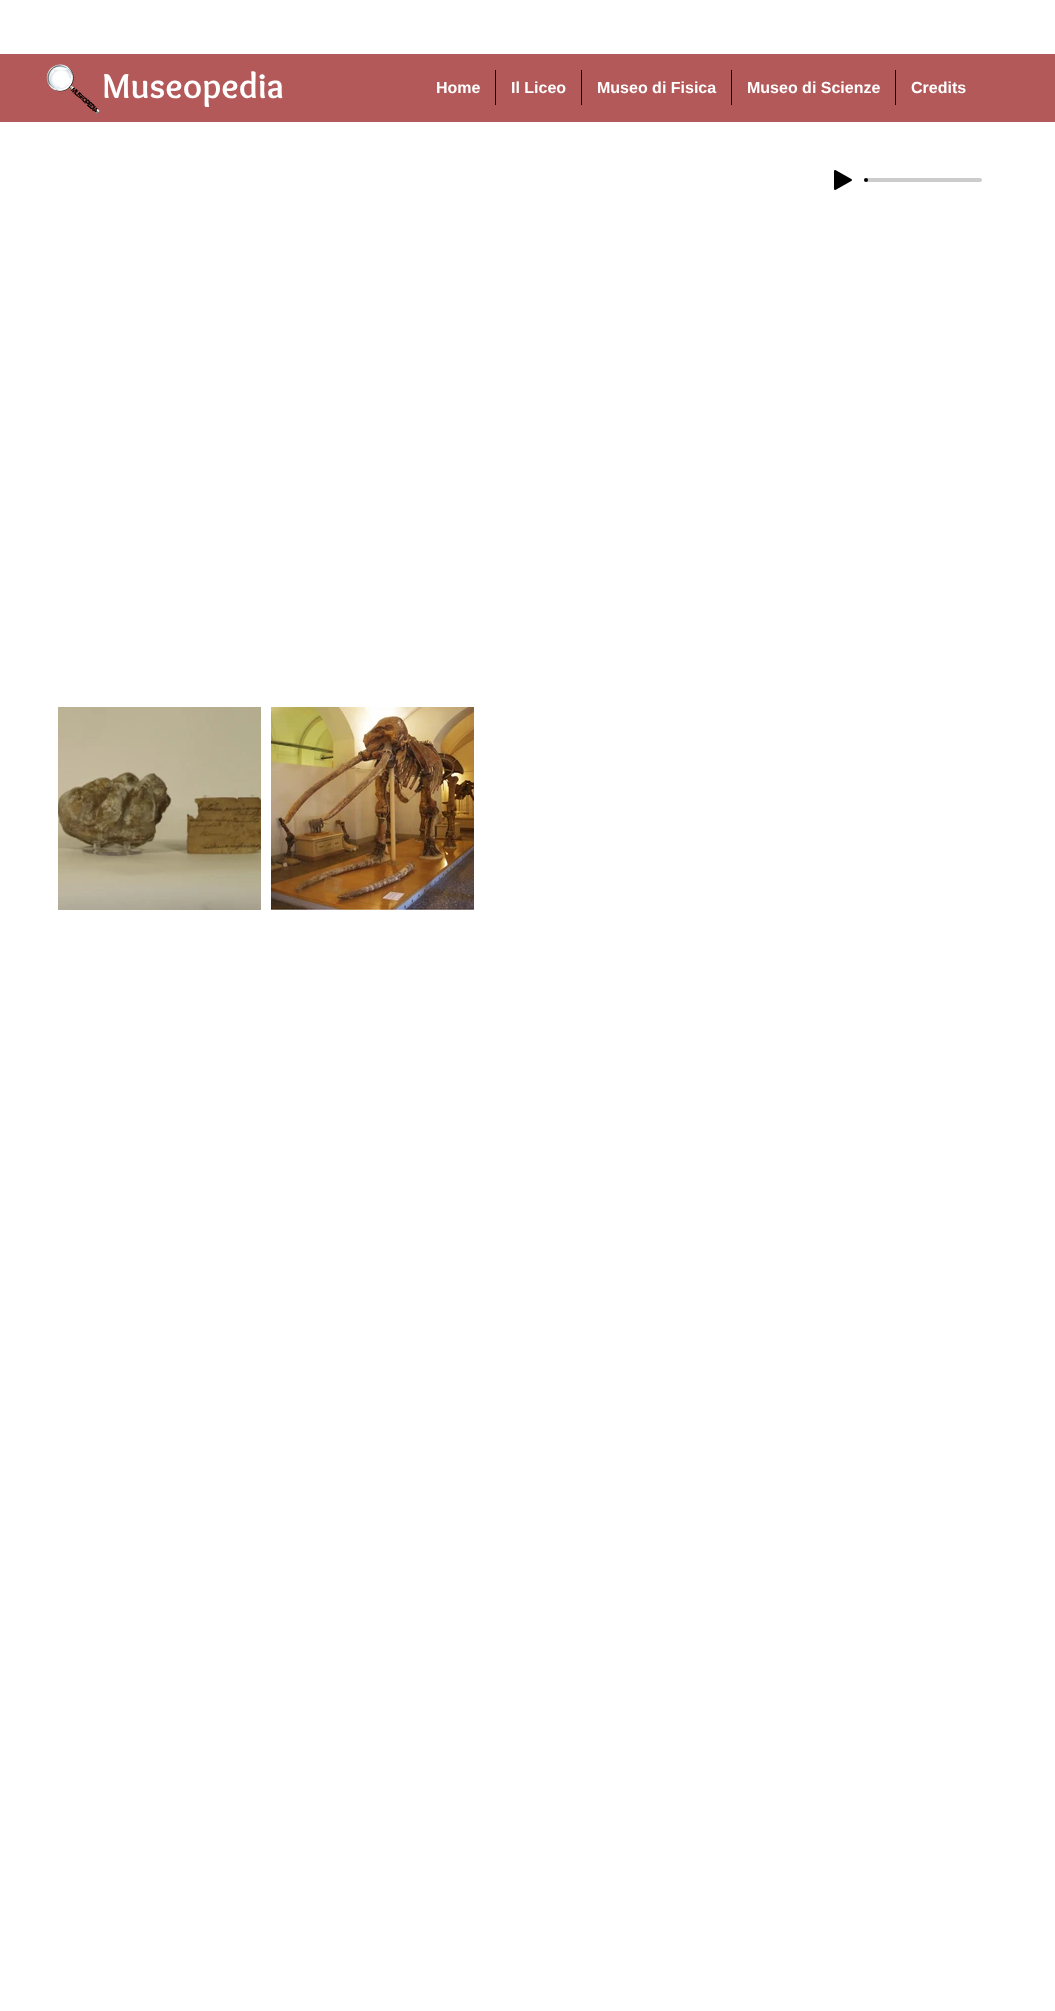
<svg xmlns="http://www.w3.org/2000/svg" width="1055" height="2011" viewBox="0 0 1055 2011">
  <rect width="100%" height="100%" fill="rgb(255,255,255)"/>
  <rect x="0" y="54" width="1055" height="68" fill="rgb(180,89,89)"/>
  <image x="46" y="64" width="54" height="50" href="pic1.png"/>
  <text x="102" y="98" font-family="Overlock" font-size="36" font-weight="bold" fill="rgb(255,255,255)">Museopedia</text>
  <text x="436" y="93" font-family="Liberation Sans" font-size="16" font-weight="bold" fill="rgb(255,255,255)">Home</text>
  <rect x="495" y="70" width="1" height="35" fill="rgb(0,0,0)"/>
  <text x="511" y="93" font-family="Liberation Sans" font-size="16" font-weight="bold" fill="rgb(255,255,255)">Il Liceo</text>
  <rect x="581" y="70" width="1" height="35" fill="rgb(0,0,0)"/>
  <text x="597" y="93" font-family="Liberation Sans" font-size="16" font-weight="bold" fill="rgb(255,255,255)">Museo di Fisica</text>
  <rect x="731" y="70" width="1" height="35" fill="rgb(0,0,0)"/>
  <text x="747" y="93" font-family="Liberation Sans" font-size="16" font-weight="bold" fill="rgb(255,255,255)">Museo di Scienze</text>
  <rect x="895" y="70" width="1" height="35" fill="rgb(0,0,0)"/>
  <text x="911" y="93" font-family="Liberation Sans" font-size="16" font-weight="bold" fill="rgb(255,255,255)">Credits</text>
  <image x="834" y="170" width="18" height="20" href="pic2.png"/>
  <rect x="866" y="178" width="116" height="4" rx="2" fill="rgb(204,204,204)"/>
  <circle cx="866" cy="180" r="2" fill="rgb(0,0,0)"/>
  <image x="58" y="707" width="203" height="203" href="pic3.png"/>
  <image x="271" y="707" width="203" height="203" href="pic4.png"/>
</svg>
